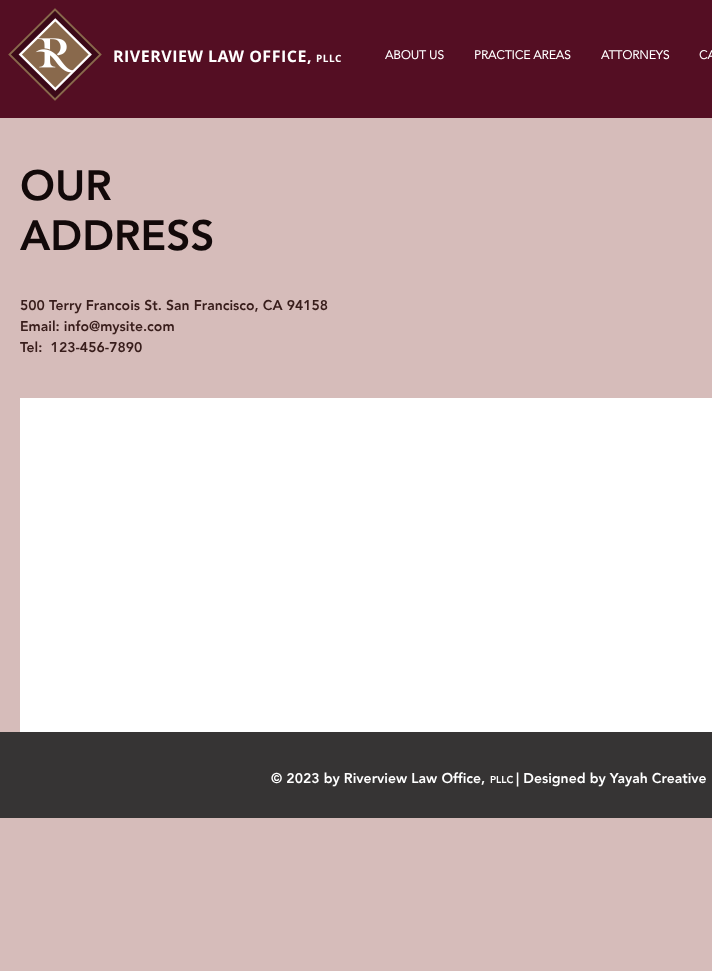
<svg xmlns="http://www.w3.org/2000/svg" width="712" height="971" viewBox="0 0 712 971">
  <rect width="100%" height="100%" fill="rgb(214,188,186)"/>
  <rect x="0" y="0" width="712" height="118" fill="rgb(84,14,35)"/>
  <image x="8" y="8" width="94" height="93" href="pic1.png"/>
  <text x="113" y="62" font-family="Open Sans" font-size="16" font-weight="bold" letter-spacing="0.5" fill="rgb(255,255,255)">RIVERVIEW LAW OFFICE,</text>
  <text x="316" y="62" font-family="Open Sans" font-size="10" font-weight="bold" letter-spacing="0.5" fill="rgb(255,255,255)">PLLC</text>
  <g font-family="'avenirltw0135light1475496'" font-size="12" font-weight="bold" fill="rgb(255,255,255)">
    <text x="385" y="59">ABOUT US</text>
    <text x="474" y="59">PRACTICE AREAS</text>
    <text x="601" y="59">ATTORNEYS</text>
    <text x="699" y="59">CA</text>
  </g>
  <g font-family="'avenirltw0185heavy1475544'" font-size="42" font-weight="900" fill="rgb(18,9,9)">
    <text>
      <tspan x="20" y="200">OUR</tspan>
      <tspan x="20" y="250">ADDRESS</tspan>
    </text>
  </g>
  <g font-family="'avenirltw0185heavy1475544'" font-size="14" font-weight="900" fill="rgb(56,29,27)">
    <text xml:space="preserve"><tspan x="20" y="310">500 Terry Francois St. San Francisco, CA 94158</tspan><tspan x="20" y="331">Email: info@mysite.com</tspan><tspan x="20" y="352">Tel:  123-456-7890</tspan></text>
  </g>
  <rect x="20" y="398" width="692" height="334" fill="rgb(255,255,255)"/>
  <rect x="0" y="732" width="712" height="86" fill="rgb(54,52,52)"/>
  <text x="271" y="783" font-family="'avenirltw0185heavy1475544'" font-size="14" font-weight="900" fill="rgb(255,255,255)">© 2023 by Riverview Law Office,</text>
  <text x="490" y="783" font-family="'avenirltw0185heavy1475544'" font-size="10" font-weight="900" fill="rgb(255,255,255)">PLLC</text>
  <text x="516" y="783" font-family="'avenirltw0185heavy1475544'" font-size="14" font-weight="900" fill="rgb(255,255,255)">| Designed by Yayah Creative</text>
</svg>
